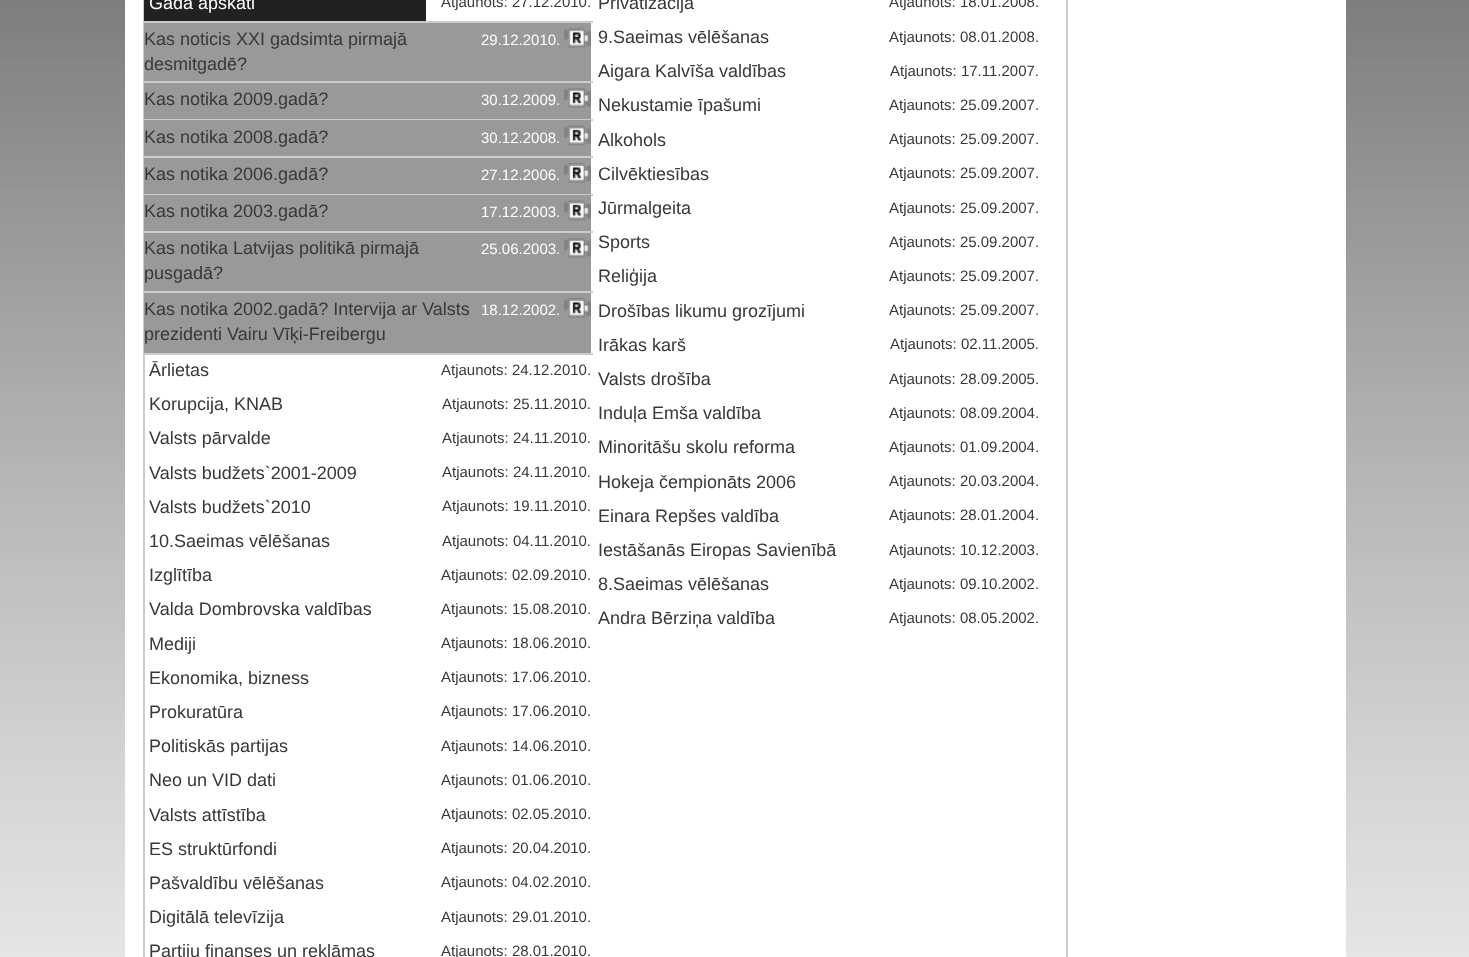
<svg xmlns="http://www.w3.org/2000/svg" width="1469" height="957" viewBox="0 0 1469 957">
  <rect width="100%" height="100%" fill="rgb(255,255,255)"/>
  <image x="0" y="0" width="1469" height="957" href="pic1.png"/>
  <rect x="125" y="0" width="1221" height="957" fill="rgb(255,255,255)"/>
  <rect x="144" y="-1" width="923" height="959" fill="none" stroke="rgb(204,204,204)" stroke-width="2"/>
  <rect x="144" y="0" width="282" height="21" fill="rgb(32,33,32)"/>
  <text x="149" y="9" font-family="Liberation Sans" font-size="18" fill="rgb(255,255,255)">Gada apskati</text>
  <text x="441" y="7" font-family="Liberation Sans" font-size="15" fill="rgb(57,56,57)">Atjaunots: 27.12.2010.</text>
  <rect x="144" y="21" width="449" height="2" fill="rgb(204,204,204)"/>
  <rect x="144" y="23" width="447" height="58" fill="rgb(153,153,153)"/>
  <g font-family="Liberation Sans" font-size="18" fill="rgb(57,56,57)">
    <text>
      <tspan x="144" y="45">Kas noticis XXI gadsimta pirmajā</tspan>
      <tspan x="144" y="70">desmitgadē?</tspan>
    </text>
  </g>
  <text x="481" y="45" font-family="Liberation Sans" font-size="15" fill="rgb(255,255,255)">29.12.2010.</text>
  <image x="564" y="28" width="27" height="20" href="pic2.png"/>
  <rect x="144" y="81" width="449" height="2" fill="rgb(204,204,204)"/>
  <rect x="144" y="83" width="447" height="36" fill="rgb(153,153,153)"/>
  <text x="144" y="105" font-family="Liberation Sans" font-size="18" fill="rgb(57,56,57)">Kas notika 2009.gadā?</text>
  <text x="481" y="105" font-family="Liberation Sans" font-size="15" fill="rgb(255,255,255)">30.12.2009.</text>
  <image x="564" y="88" width="27" height="20" href="pic2.png"/>
  <rect x="144" y="119" width="449" height="2" fill="rgb(204,204,204)"/>
  <rect x="144" y="120" width="447" height="36" fill="rgb(153,153,153)"/>
  <text x="144" y="143" font-family="Liberation Sans" font-size="18" fill="rgb(57,56,57)">Kas notika 2008.gadā?</text>
  <text x="481" y="143" font-family="Liberation Sans" font-size="15" fill="rgb(255,255,255)">30.12.2008.</text>
  <image x="564" y="125" width="27" height="21" href="pic3.png"/>
  <rect x="144" y="156" width="449" height="2" fill="rgb(204,204,204)"/>
  <rect x="144" y="158" width="447" height="36" fill="rgb(153,153,153)"/>
  <text x="144" y="180" font-family="Liberation Sans" font-size="18" fill="rgb(57,56,57)">Kas notika 2006.gadā?</text>
  <text x="481" y="180" font-family="Liberation Sans" font-size="15" fill="rgb(255,255,255)">27.12.2006.</text>
  <image x="564" y="163" width="27" height="20" href="pic2.png"/>
  <rect x="144" y="194" width="449" height="2" fill="rgb(204,204,204)"/>
  <rect x="144" y="195" width="447" height="36" fill="rgb(153,153,153)"/>
  <text x="144" y="217" font-family="Liberation Sans" font-size="18" fill="rgb(57,56,57)">Kas notika 2003.gadā?</text>
  <text x="481" y="217" font-family="Liberation Sans" font-size="15" fill="rgb(255,255,255)">17.12.2003.</text>
  <image x="564" y="200" width="27" height="21" href="pic3.png"/>
  <rect x="144" y="231" width="449" height="2" fill="rgb(204,204,204)"/>
  <rect x="144" y="233" width="447" height="58" fill="rgb(153,153,153)"/>
  <g font-family="Liberation Sans" font-size="18" fill="rgb(57,56,57)">
    <text>
      <tspan x="144" y="254">Kas notika Latvijas politikā pirmajā</tspan>
      <tspan x="144" y="279">pusgadā?</tspan>
    </text>
  </g>
  <text x="481" y="254" font-family="Liberation Sans" font-size="15" fill="rgb(255,255,255)">25.06.2003.</text>
  <image x="564" y="238" width="27" height="20" href="pic2.png"/>
  <rect x="144" y="291" width="449" height="2" fill="rgb(204,204,204)"/>
  <rect x="144" y="293" width="447" height="60" fill="rgb(153,153,153)"/>
  <g font-family="Liberation Sans" font-size="18" fill="rgb(57,56,57)">
    <text>
      <tspan x="144" y="315">Kas notika 2002.gadā? Intervija ar Valsts</tspan>
      <tspan x="144" y="340">prezidenti Vairu Vīķi-Freibergu</tspan>
    </text>
  </g>
  <text x="481" y="315" font-family="Liberation Sans" font-size="15" fill="rgb(255,255,255)">18.12.2002.</text>
  <image x="564" y="298" width="27" height="20" href="pic2.png"/>
  <rect x="144" y="353" width="449" height="2" fill="rgb(204,204,204)"/>
  <text x="149" y="376" font-family="Liberation Sans" font-size="18" fill="rgb(57,56,57)">Ārlietas</text>
  <text x="441" y="375" font-family="Liberation Sans" font-size="15" fill="rgb(57,56,57)">Atjaunots: 24.12.2010.</text>
  <text x="149" y="410" font-family="Liberation Sans" font-size="18" fill="rgb(57,56,57)">Korupcija, KNAB</text>
  <text x="442" y="409" font-family="Liberation Sans" font-size="15" fill="rgb(57,56,57)">Atjaunots: 25.11.2010.</text>
  <text x="149" y="444" font-family="Liberation Sans" font-size="18" fill="rgb(57,56,57)">Valsts pārvalde</text>
  <text x="442" y="443" font-family="Liberation Sans" font-size="15" fill="rgb(57,56,57)">Atjaunots: 24.11.2010.</text>
  <text x="149" y="479" font-family="Liberation Sans" font-size="18" fill="rgb(57,56,57)">Valsts budžets`2001-2009</text>
  <text x="442" y="477" font-family="Liberation Sans" font-size="15" fill="rgb(57,56,57)">Atjaunots: 24.11.2010.</text>
  <text x="149" y="513" font-family="Liberation Sans" font-size="18" fill="rgb(57,56,57)">Valsts budžets`2010</text>
  <text x="442" y="511" font-family="Liberation Sans" font-size="15" fill="rgb(57,56,57)">Atjaunots: 19.11.2010.</text>
  <text x="149" y="547" font-family="Liberation Sans" font-size="18" fill="rgb(57,56,57)">10.Saeimas vēlēšanas</text>
  <text x="442" y="546" font-family="Liberation Sans" font-size="15" fill="rgb(57,56,57)">Atjaunots: 04.11.2010.</text>
  <text x="149" y="581" font-family="Liberation Sans" font-size="18" fill="rgb(57,56,57)">Izglītība</text>
  <text x="441" y="580" font-family="Liberation Sans" font-size="15" fill="rgb(57,56,57)">Atjaunots: 02.09.2010.</text>
  <text x="149" y="615" font-family="Liberation Sans" font-size="18" fill="rgb(57,56,57)">Valda Dombrovska valdības</text>
  <text x="441" y="614" font-family="Liberation Sans" font-size="15" fill="rgb(57,56,57)">Atjaunots: 15.08.2010.</text>
  <text x="149" y="650" font-family="Liberation Sans" font-size="18" fill="rgb(57,56,57)">Mediji</text>
  <text x="441" y="648" font-family="Liberation Sans" font-size="15" fill="rgb(57,56,57)">Atjaunots: 18.06.2010.</text>
  <text x="149" y="684" font-family="Liberation Sans" font-size="18" fill="rgb(57,56,57)">Ekonomika, bizness</text>
  <text x="441" y="682" font-family="Liberation Sans" font-size="15" fill="rgb(57,56,57)">Atjaunots: 17.06.2010.</text>
  <text x="149" y="718" font-family="Liberation Sans" font-size="18" fill="rgb(57,56,57)">Prokuratūra</text>
  <text x="441" y="716" font-family="Liberation Sans" font-size="15" fill="rgb(57,56,57)">Atjaunots: 17.06.2010.</text>
  <text x="149" y="752" font-family="Liberation Sans" font-size="18" fill="rgb(57,56,57)">Politiskās partijas</text>
  <text x="441" y="751" font-family="Liberation Sans" font-size="15" fill="rgb(57,56,57)">Atjaunots: 14.06.2010.</text>
  <text x="149" y="786" font-family="Liberation Sans" font-size="18" fill="rgb(57,56,57)">Neo un VID dati</text>
  <text x="441" y="785" font-family="Liberation Sans" font-size="15" fill="rgb(57,56,57)">Atjaunots: 01.06.2010.</text>
  <text x="149" y="821" font-family="Liberation Sans" font-size="18" fill="rgb(57,56,57)">Valsts attīstība</text>
  <text x="441" y="819" font-family="Liberation Sans" font-size="15" fill="rgb(57,56,57)">Atjaunots: 02.05.2010.</text>
  <text x="149" y="855" font-family="Liberation Sans" font-size="18" fill="rgb(57,56,57)">ES struktūrfondi</text>
  <text x="441" y="853" font-family="Liberation Sans" font-size="15" fill="rgb(57,56,57)">Atjaunots: 20.04.2010.</text>
  <text x="149" y="889" font-family="Liberation Sans" font-size="18" fill="rgb(57,56,57)">Pašvaldību vēlēšanas</text>
  <text x="441" y="887" font-family="Liberation Sans" font-size="15" fill="rgb(57,56,57)">Atjaunots: 04.02.2010.</text>
  <text x="149" y="923" font-family="Liberation Sans" font-size="18" fill="rgb(57,56,57)">Digitālā televīzija</text>
  <text x="441" y="922" font-family="Liberation Sans" font-size="15" fill="rgb(57,56,57)">Atjaunots: 29.01.2010.</text>
  <text x="149" y="957" font-family="Liberation Sans" font-size="18" fill="rgb(57,56,57)">Partiju finanses un reklāmas</text>
  <text x="441" y="956" font-family="Liberation Sans" font-size="15" fill="rgb(57,56,57)">Atjaunots: 28.01.2010.</text>
  <text x="598" y="9" font-family="Liberation Sans" font-size="18" fill="rgb(57,56,57)">Privatizācija</text>
  <text x="889" y="7" font-family="Liberation Sans" font-size="15" fill="rgb(57,56,57)">Atjaunots: 18.01.2008.</text>
  <text x="598" y="43" font-family="Liberation Sans" font-size="18" fill="rgb(57,56,57)">9.Saeimas vēlēšanas</text>
  <text x="889" y="42" font-family="Liberation Sans" font-size="15" fill="rgb(57,56,57)">Atjaunots: 08.01.2008.</text>
  <text x="598" y="77" font-family="Liberation Sans" font-size="18" fill="rgb(57,56,57)">Aigara Kalvīša valdības</text>
  <text x="890" y="76" font-family="Liberation Sans" font-size="15" fill="rgb(57,56,57)">Atjaunots: 17.11.2007.</text>
  <text x="598" y="111" font-family="Liberation Sans" font-size="18" fill="rgb(57,56,57)">Nekustamie īpašumi</text>
  <text x="889" y="110" font-family="Liberation Sans" font-size="15" fill="rgb(57,56,57)">Atjaunots: 25.09.2007.</text>
  <text x="598" y="146" font-family="Liberation Sans" font-size="18" fill="rgb(57,56,57)">Alkohols</text>
  <text x="889" y="144" font-family="Liberation Sans" font-size="15" fill="rgb(57,56,57)">Atjaunots: 25.09.2007.</text>
  <text x="598" y="180" font-family="Liberation Sans" font-size="18" fill="rgb(57,56,57)">Cilvēktiesības</text>
  <text x="889" y="178" font-family="Liberation Sans" font-size="15" fill="rgb(57,56,57)">Atjaunots: 25.09.2007.</text>
  <text x="598" y="214" font-family="Liberation Sans" font-size="18" fill="rgb(57,56,57)">Jūrmalgeita</text>
  <text x="889" y="213" font-family="Liberation Sans" font-size="15" fill="rgb(57,56,57)">Atjaunots: 25.09.2007.</text>
  <text x="598" y="248" font-family="Liberation Sans" font-size="18" fill="rgb(57,56,57)">Sports</text>
  <text x="889" y="247" font-family="Liberation Sans" font-size="15" fill="rgb(57,56,57)">Atjaunots: 25.09.2007.</text>
  <text x="598" y="282" font-family="Liberation Sans" font-size="18" fill="rgb(57,56,57)">Reliģija</text>
  <text x="889" y="281" font-family="Liberation Sans" font-size="15" fill="rgb(57,56,57)">Atjaunots: 25.09.2007.</text>
  <text x="598" y="317" font-family="Liberation Sans" font-size="18" fill="rgb(57,56,57)">Drošības likumu grozījumi</text>
  <text x="889" y="315" font-family="Liberation Sans" font-size="15" fill="rgb(57,56,57)">Atjaunots: 25.09.2007.</text>
  <text x="598" y="351" font-family="Liberation Sans" font-size="18" fill="rgb(57,56,57)">Irākas karš</text>
  <text x="890" y="349" font-family="Liberation Sans" font-size="15" fill="rgb(57,56,57)">Atjaunots: 02.11.2005.</text>
  <text x="598" y="385" font-family="Liberation Sans" font-size="18" fill="rgb(57,56,57)">Valsts drošība</text>
  <text x="889" y="384" font-family="Liberation Sans" font-size="15" fill="rgb(57,56,57)">Atjaunots: 28.09.2005.</text>
  <text x="598" y="419" font-family="Liberation Sans" font-size="18" fill="rgb(57,56,57)">Induļa Emša valdība</text>
  <text x="889" y="418" font-family="Liberation Sans" font-size="15" fill="rgb(57,56,57)">Atjaunots: 08.09.2004.</text>
  <text x="598" y="453" font-family="Liberation Sans" font-size="18" fill="rgb(57,56,57)">Minoritāšu skolu reforma</text>
  <text x="889" y="452" font-family="Liberation Sans" font-size="15" fill="rgb(57,56,57)">Atjaunots: 01.09.2004.</text>
  <text x="598" y="488" font-family="Liberation Sans" font-size="18" fill="rgb(57,56,57)">Hokeja čempionāts 2006</text>
  <text x="889" y="486" font-family="Liberation Sans" font-size="15" fill="rgb(57,56,57)">Atjaunots: 20.03.2004.</text>
  <text x="598" y="522" font-family="Liberation Sans" font-size="18" fill="rgb(57,56,57)">Einara Repšes valdība</text>
  <text x="889" y="520" font-family="Liberation Sans" font-size="15" fill="rgb(57,56,57)">Atjaunots: 28.01.2004.</text>
  <text x="598" y="556" font-family="Liberation Sans" font-size="18" fill="rgb(57,56,57)">Iestāšanās Eiropas Savienībā</text>
  <text x="889" y="555" font-family="Liberation Sans" font-size="15" fill="rgb(57,56,57)">Atjaunots: 10.12.2003.</text>
  <text x="598" y="590" font-family="Liberation Sans" font-size="18" fill="rgb(57,56,57)">8.Saeimas vēlēšanas</text>
  <text x="889" y="589" font-family="Liberation Sans" font-size="15" fill="rgb(57,56,57)">Atjaunots: 09.10.2002.</text>
  <text x="598" y="624" font-family="Liberation Sans" font-size="18" fill="rgb(57,56,57)">Andra Bērziņa valdība</text>
  <text x="889" y="623" font-family="Liberation Sans" font-size="15" fill="rgb(57,56,57)">Atjaunots: 08.05.2002.</text>
</svg>
